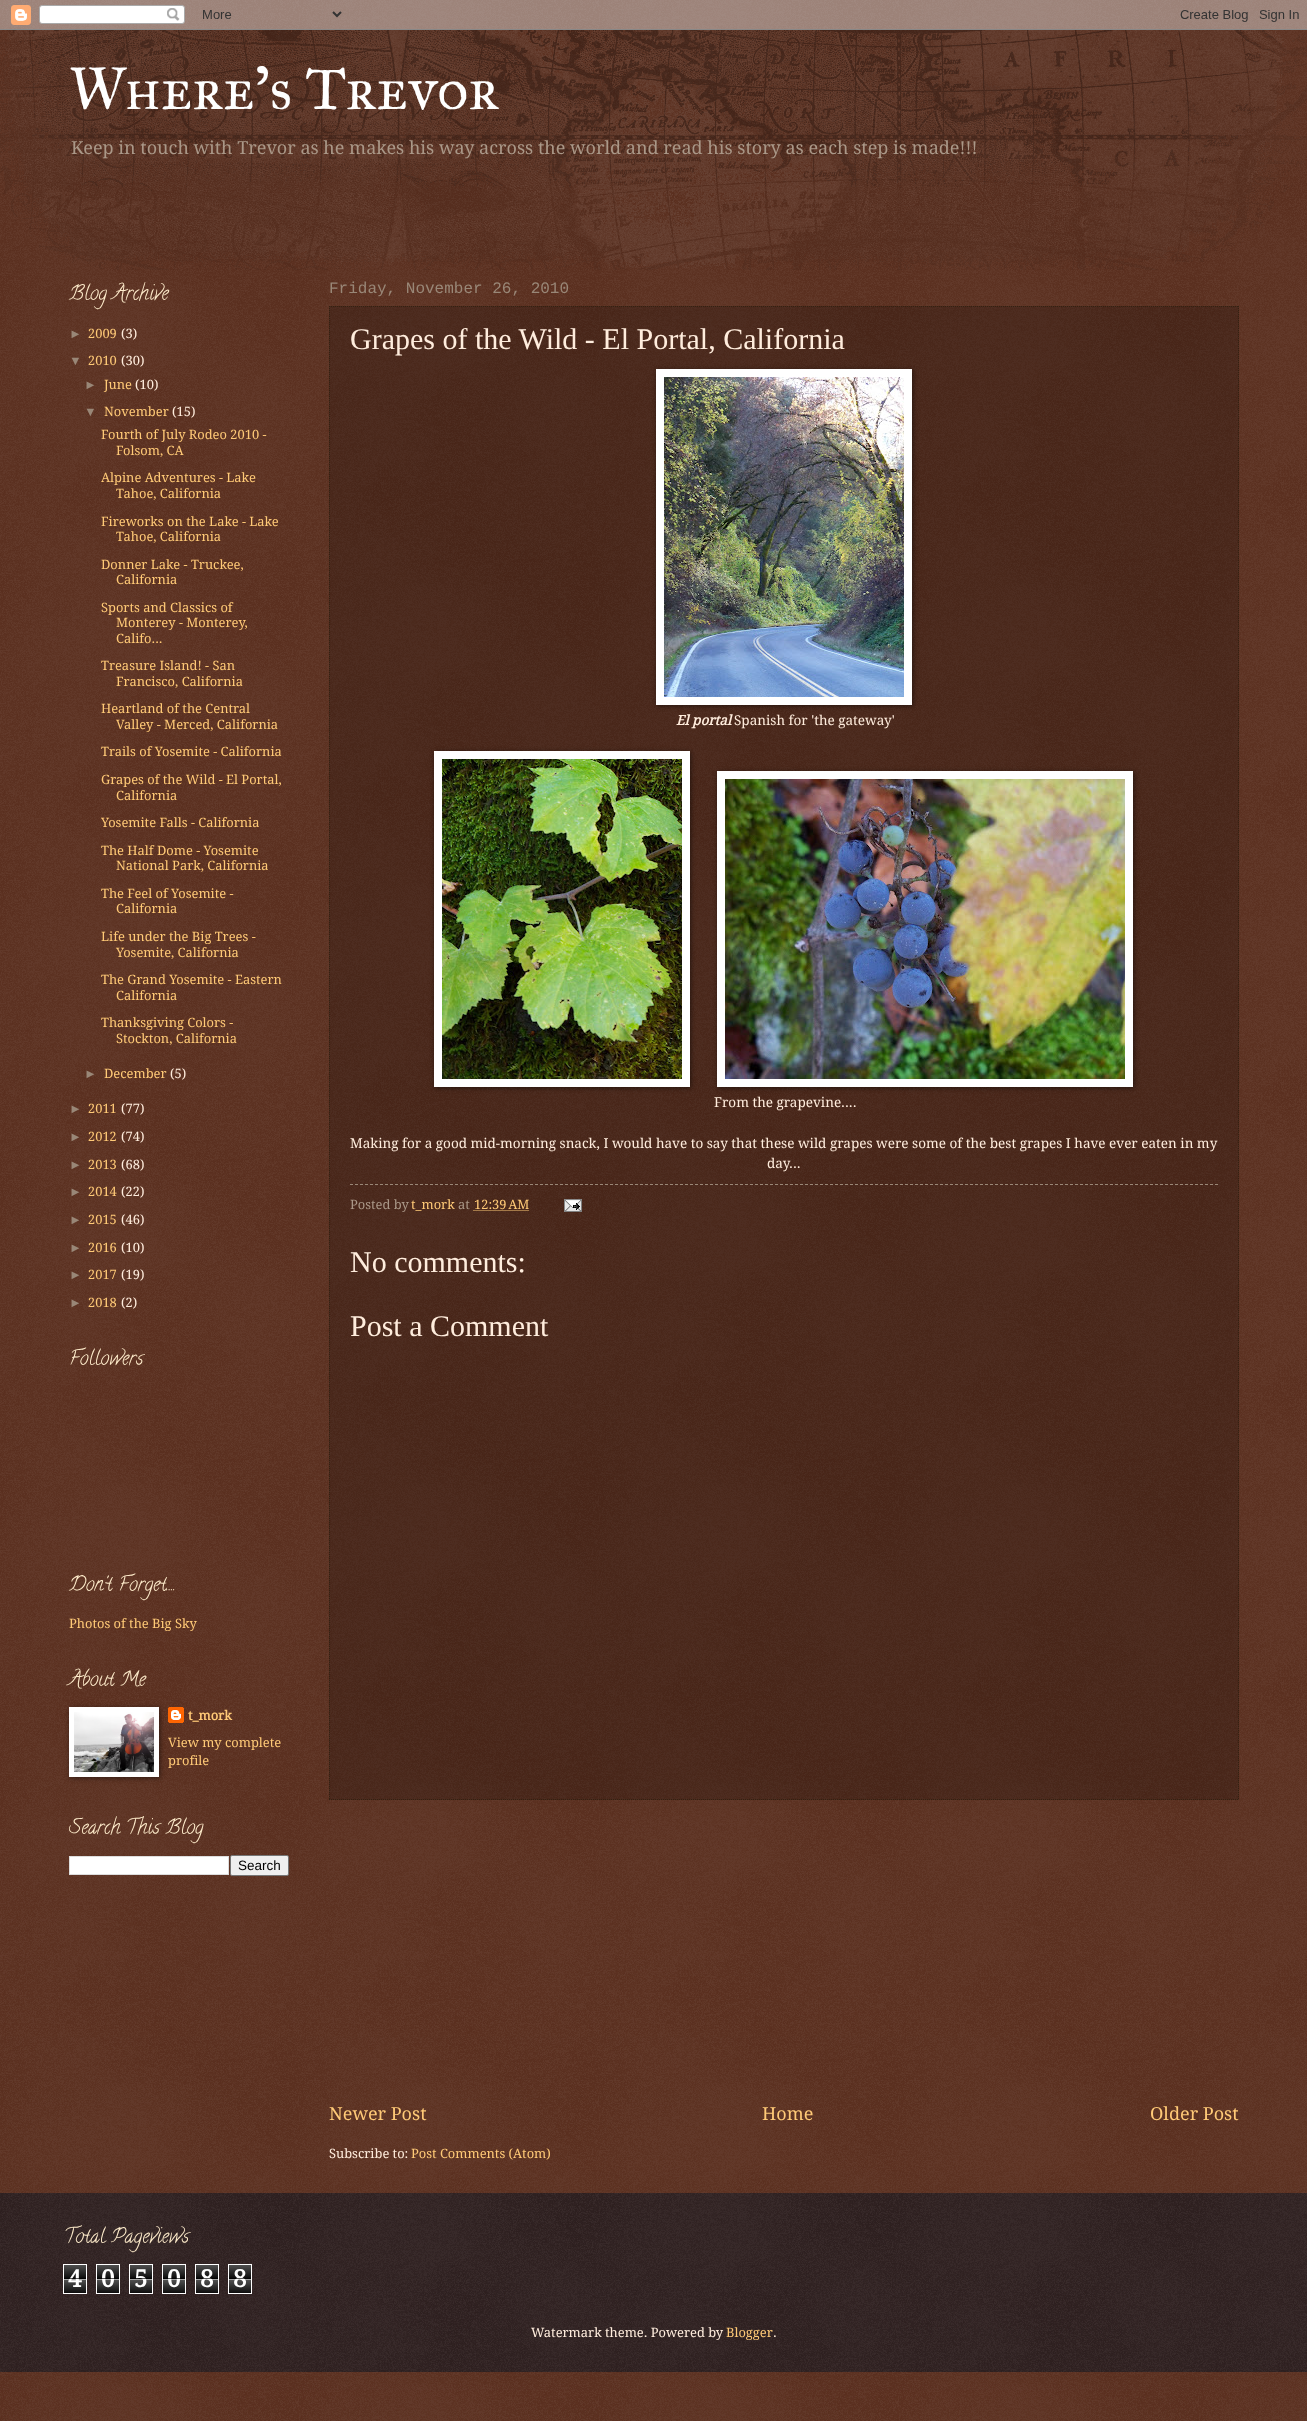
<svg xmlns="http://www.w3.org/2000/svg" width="1307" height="2421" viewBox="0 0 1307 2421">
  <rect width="100%" height="100%" fill="rgb(68,19,0)"/>
  <image x="0" y="0" width="1307" height="2421" href="pic1.png"/>
  <image x="0" y="0" width="1307" height="30" href="pic2.png"/>
  <image x="0" y="30" width="1307" height="240" href="pic3.png"/>
  <text x="69" y="109" font-family="IM FELL Great Primer SC" font-size="60" fill="rgb(255,255,255)">Where's Trevor</text>
  <text x="71" y="154" font-family="Droid Serif" font-size="18.03" fill="rgb(170,152,136)">Keep in touch with Trevor as he makes his way across the world and read his story as each step is made!!!</text>
  <text x="69" y="299" font-family="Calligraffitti" font-size="20" fill="rgb(255,237,204)">Blog Archive</text>
  <text x="69" y="338" font-family="Liberation Sans" font-size="12.9" fill="rgb(153,135,119)">►</text>
  <text x="88" y="338" font-family="Droid Serif" font-size="12.9" fill="rgb(255,202,119)">2009</text>
  <text x="121" y="338" font-family="Droid Serif" font-size="12.9" fill="rgb(255,237,221)">(3)</text>
  <text x="69" y="365" font-family="Liberation Sans" font-size="12.9" fill="rgb(153,135,119)">▼</text>
  <text x="88" y="365" font-family="Droid Serif" font-size="12.9" fill="rgb(255,202,119)">2010</text>
  <text x="121" y="365" font-family="Droid Serif" font-size="12.9" fill="rgb(255,237,221)">(30)</text>
  <text x="84" y="389" font-family="Liberation Sans" font-size="12.9" fill="rgb(153,135,119)">►</text>
  <text x="104" y="389" font-family="Droid Serif" font-size="12.9" fill="rgb(255,202,119)">June</text>
  <text x="135" y="389" font-family="Droid Serif" font-size="12.9" fill="rgb(255,237,221)">(10)</text>
  <text x="84" y="416" font-family="Liberation Sans" font-size="12.9" fill="rgb(153,135,119)">▼</text>
  <text x="104" y="416" font-family="Droid Serif" font-size="12.9" fill="rgb(255,202,119)">November</text>
  <text x="172" y="416" font-family="Droid Serif" font-size="12.9" fill="rgb(255,237,221)">(15)</text>
  <g font-family="Droid Serif" font-size="12.9" fill="rgb(255,202,119)">
    <text x="101" y="439">Fourth of July Rodeo 2010 -</text>
    <text x="116" y="455">Folsom, CA</text>
    <text x="101" y="482">Alpine Adventures - Lake</text>
    <text x="116" y="498">Tahoe, California</text>
    <text x="101" y="526">Fireworks on the Lake - Lake</text>
    <text x="116" y="541">Tahoe, California</text>
    <text x="101" y="569">Donner Lake - Truckee,</text>
    <text x="116" y="584">California</text>
    <text x="101" y="612">Sports and Classics of</text>
    <text>
      <tspan x="116" y="627">Monterey - Monterey,</tspan>
      <tspan x="116" y="643">Califo...</tspan>
    </text>
    <text x="101" y="670">Treasure Island! - San</text>
    <text x="116" y="686">Francisco, California</text>
    <text x="101" y="713">Heartland of the Central</text>
    <text x="116" y="729">Valley - Merced, California</text>
    <text x="101" y="756">Trails of Yosemite - California</text>
    <text x="101" y="784">Grapes of the Wild - El Portal,</text>
    <text x="116" y="800">California</text>
    <text x="101" y="827">Yosemite Falls - California</text>
    <text x="101" y="855">The Half Dome - Yosemite</text>
    <text x="116" y="870">National Park, California</text>
    <text x="101" y="898">The Feel of Yosemite -</text>
    <text x="116" y="913">California</text>
    <text x="101" y="941">Life under the Big Trees -</text>
    <text x="116" y="957">Yosemite, California</text>
    <text x="101" y="984">The Grand Yosemite - Eastern</text>
    <text x="116" y="1000">California</text>
    <text x="101" y="1027">Thanksgiving Colors -</text>
    <text x="116" y="1043">Stockton, California</text>
  </g>
  <text x="84" y="1078" font-family="Liberation Sans" font-size="12.9" fill="rgb(153,135,119)">►</text>
  <text x="104" y="1078" font-family="Droid Serif" font-size="12.9" fill="rgb(255,202,119)">December</text>
  <text x="170" y="1078" font-family="Droid Serif" font-size="12.9" fill="rgb(255,237,221)">(5)</text>
  <text x="69" y="1113" font-family="Liberation Sans" font-size="12.9" fill="rgb(153,135,119)">►</text>
  <text x="88" y="1113" font-family="Droid Serif" font-size="12.9" fill="rgb(255,202,119)">2011</text>
  <text x="121" y="1113" font-family="Droid Serif" font-size="12.9" fill="rgb(255,237,221)">(77)</text>
  <text x="69" y="1141" font-family="Liberation Sans" font-size="12.9" fill="rgb(153,135,119)">►</text>
  <text x="88" y="1141" font-family="Droid Serif" font-size="12.9" fill="rgb(255,202,119)">2012</text>
  <text x="121" y="1141" font-family="Droid Serif" font-size="12.9" fill="rgb(255,237,221)">(74)</text>
  <text x="69" y="1169" font-family="Liberation Sans" font-size="12.9" fill="rgb(153,135,119)">►</text>
  <text x="88" y="1169" font-family="Droid Serif" font-size="12.9" fill="rgb(255,202,119)">2013</text>
  <text x="121" y="1169" font-family="Droid Serif" font-size="12.9" fill="rgb(255,237,221)">(68)</text>
  <text x="69" y="1196" font-family="Liberation Sans" font-size="12.9" fill="rgb(153,135,119)">►</text>
  <text x="88" y="1196" font-family="Droid Serif" font-size="12.9" fill="rgb(255,202,119)">2014</text>
  <text x="121" y="1196" font-family="Droid Serif" font-size="12.9" fill="rgb(255,237,221)">(22)</text>
  <text x="69" y="1224" font-family="Liberation Sans" font-size="12.9" fill="rgb(153,135,119)">►</text>
  <text x="88" y="1224" font-family="Droid Serif" font-size="12.9" fill="rgb(255,202,119)">2015</text>
  <text x="121" y="1224" font-family="Droid Serif" font-size="12.9" fill="rgb(255,237,221)">(46)</text>
  <text x="69" y="1252" font-family="Liberation Sans" font-size="12.9" fill="rgb(153,135,119)">►</text>
  <text x="88" y="1252" font-family="Droid Serif" font-size="12.9" fill="rgb(255,202,119)">2016</text>
  <text x="121" y="1252" font-family="Droid Serif" font-size="12.9" fill="rgb(255,237,221)">(10)</text>
  <text x="69" y="1279" font-family="Liberation Sans" font-size="12.9" fill="rgb(153,135,119)">►</text>
  <text x="88" y="1279" font-family="Droid Serif" font-size="12.9" fill="rgb(255,202,119)">2017</text>
  <text x="121" y="1279" font-family="Droid Serif" font-size="12.9" fill="rgb(255,237,221)">(19)</text>
  <text x="69" y="1307" font-family="Liberation Sans" font-size="12.9" fill="rgb(153,135,119)">►</text>
  <text x="88" y="1307" font-family="Droid Serif" font-size="12.9" fill="rgb(255,202,119)">2018</text>
  <text x="121" y="1307" font-family="Droid Serif" font-size="12.9" fill="rgb(255,237,221)">(2)</text>
  <g font-family="Calligraffitti" font-size="20" fill="rgb(255,237,204)">
    <text x="69" y="1364">Followers</text>
    <text x="69" y="1590">Don't Forget....</text>
  </g>
  <text x="69" y="1628" font-family="Droid Serif" font-size="12.9" fill="rgb(255,202,119)">Photos of the Big Sky</text>
  <text x="69" y="1685" font-family="Calligraffitti" font-size="20" fill="rgb(255,237,204)">About Me</text>
  <image x="168" y="1707" width="16" height="16" href="pic5.png"/>
  <rect x="70" y="1708" width="90" height="70" fill="rgba(0,0,0,0.5)" filter="blur(2.5px)"/>
  <rect x="69" y="1707" width="90" height="70" fill="rgb(255,255,255)"/>
  <image x="74" y="1712" width="80" height="60" href="pic4.png"/>
  <text x="188" y="1720" font-family="Droid Serif" font-size="12.9" font-weight="bold" fill="rgb(255,202,119)">t_mork</text>
  <g font-family="Droid Serif" font-size="12.9" fill="rgb(255,202,119)">
    <text>
      <tspan x="168" y="1747">View my complete</tspan>
      <tspan x="168" y="1765">profile</tspan>
    </text>
  </g>
  <text x="69" y="1833" font-family="Calligraffitti" font-size="20" fill="rgb(255,237,204)">Search This Blog</text>
  <rect x="69.5" y="1856.5" width="159" height="18" fill="rgb(255,255,255)" stroke="rgb(221,221,221)"/>
  <rect x="230.5" y="1855.5" width="58" height="20" rx="1.5" fill="rgb(239,239,239)" stroke="rgb(118,118,118)"/>
  <text x="238" y="1870" font-family="Liberation Sans" font-size="13.5" fill="rgb(0,0,0)">Search</text>
  <text x="329" y="293" font-family="Liberation Mono" font-size="16" fill="rgb(153,135,119)">Friday, November 26, 2010</text>
  <rect x="329" y="306" width="910" height="1494" fill="rgba(0,0,0,0.2)"/>
  <path d="M329 306.5H1239" fill="none" stroke="rgb(51,33,17)" stroke-dasharray="1 1"/>
  <path d="M1238.5 306V1800" fill="none" stroke="rgb(51,33,17)" stroke-dasharray="1 1"/>
  <path d="M329 1799.5H1239" fill="none" stroke="rgb(51,33,17)" stroke-dasharray="1 1"/>
  <path d="M329.5 306V1800" fill="none" stroke="rgb(51,33,17)" stroke-dasharray="1 1"/>
  <text x="350" y="349" font-family="Liberation Serif" font-size="30" fill="rgb(255,237,221)">Grapes of the Wild - El Portal, California</text>
  <rect x="657" y="370" width="256" height="336" fill="rgba(0,0,0,0.5)" filter="blur(2.5px)"/>
  <rect x="656" y="369" width="256" height="336" fill="rgb(255,255,255)"/>
  <image x="664" y="377" width="240" height="320" href="pic6.png"/>
  <text x="676" y="725" font-family="Droid Serif" font-size="13.52" font-weight="bold" font-style="italic" fill="rgb(255,237,221)">El portal</text>
  <text x="734" y="725" font-family="Droid Serif" font-size="13.52" fill="rgb(255,237,221)">Spanish for 'the gateway'</text>
  <rect x="435" y="752" width="256" height="336" fill="rgba(0,0,0,0.5)" filter="blur(2.5px)"/>
  <rect x="434" y="751" width="256" height="336" fill="rgb(255,255,255)"/>
  <image x="442" y="759" width="240" height="320" href="pic7.png"/>
  <rect x="718" y="772" width="416" height="316" fill="rgba(0,0,0,0.5)" filter="blur(2.5px)"/>
  <rect x="717" y="771" width="416" height="316" fill="rgb(255,255,255)"/>
  <image x="725" y="779" width="400" height="300" href="pic8.png"/>
  <g font-family="Droid Serif" font-size="13.52" fill="rgb(255,237,221)">
    <text x="714" y="1107">From the grapevine....</text>
    <text x="350" y="1148">Making for a good mid-morning snack, I would have to say that these wild grapes were some of the best grapes I have ever eaten in my</text>
    <text x="767" y="1168">day...</text>
  </g>
  <path d="M350 1184.5H1218" fill="none" stroke="rgb(153,135,119)" stroke-dasharray="3 2"/>
  <text x="350" y="1209" font-family="Droid Serif" font-size="12.9" fill="rgb(170,152,136)">Posted by</text>
  <text x="411" y="1209" font-family="Droid Serif" font-size="12.9" fill="rgb(255,202,119)">t_mork</text>
  <text x="458" y="1209" font-family="Droid Serif" font-size="12.9" fill="rgb(170,152,136)">at</text>
  <text x="474" y="1209" font-family="Droid Serif" font-size="12.9" fill="rgb(255,202,119)">12:39 AM</text>
  <path d="M473.5 1210.5H529" fill="none" stroke="rgb(255,202,119)" stroke-dasharray="1 1"/>
  <image x="564" y="1199" width="18" height="13" href="pic9.png"/>
  <g font-family="Liberation Serif" font-size="30" fill="rgb(255,237,221)">
    <text x="350" y="1272">No comments:</text>
    <text x="350" y="1336">Post a Comment</text>
  </g>
  <g font-family="Droid Serif" font-size="18.03" fill="rgb(255,202,119)">
    <text x="329" y="2120">Newer Post</text>
    <text x="762" y="2120">Home</text>
    <text x="1150" y="2120">Older Post</text>
  </g>
  <text x="329" y="2158" font-family="Droid Serif" font-size="12.9" fill="rgb(255,237,221)">Subscribe to:</text>
  <text x="411" y="2158" font-family="Droid Serif" font-size="12.9" fill="rgb(255,202,119)">Post Comments (Atom)</text>
  <rect x="0" y="2193" width="1307" height="179" fill="rgb(17,0,0)"/>
  <image x="0" y="2193" width="1307" height="179" href="pic10.png"/>
  <text x="64" y="2242" font-family="Calligraffitti" font-size="20" fill="rgb(255,237,204)">Total Pageviews</text>
  <image x="64" y="2265" width="22" height="28" href="pic11.png"/>
  <rect x="63.5" y="2264.5" width="23" height="29" fill="none" stroke="rgb(255,255,255)"/>
  <text x="68" y="2287" font-family="Droid Serif" font-size="24" font-weight="bold" fill="rgb(255,255,255)">4</text>
  <rect x="64" y="2278" width="22" height="1" fill="rgba(0,0,0,0.65)"/>
  <rect x="64" y="2279" width="22" height="1" fill="rgba(255,255,255,0.65)"/>
  <image x="97" y="2265" width="22" height="28" href="pic11.png"/>
  <rect x="96.5" y="2264.5" width="23" height="29" fill="none" stroke="rgb(255,255,255)"/>
  <text x="101" y="2287" font-family="Droid Serif" font-size="24" font-weight="bold" fill="rgb(255,255,255)">0</text>
  <rect x="97" y="2278" width="22" height="1" fill="rgba(0,0,0,0.65)"/>
  <rect x="97" y="2279" width="22" height="1" fill="rgba(255,255,255,0.65)"/>
  <image x="130" y="2265" width="22" height="28" href="pic11.png"/>
  <rect x="129.5" y="2264.5" width="23" height="29" fill="none" stroke="rgb(255,255,255)"/>
  <text x="134" y="2287" font-family="Droid Serif" font-size="24" font-weight="bold" fill="rgb(255,255,255)">5</text>
  <rect x="130" y="2278" width="22" height="1" fill="rgba(0,0,0,0.65)"/>
  <rect x="130" y="2279" width="22" height="1" fill="rgba(255,255,255,0.65)"/>
  <image x="163" y="2265" width="22" height="28" href="pic11.png"/>
  <rect x="162.5" y="2264.5" width="23" height="29" fill="none" stroke="rgb(255,255,255)"/>
  <text x="167" y="2287" font-family="Droid Serif" font-size="24" font-weight="bold" fill="rgb(255,255,255)">0</text>
  <rect x="163" y="2278" width="22" height="1" fill="rgba(0,0,0,0.65)"/>
  <rect x="163" y="2279" width="22" height="1" fill="rgba(255,255,255,0.65)"/>
  <image x="196" y="2265" width="22" height="28" href="pic11.png"/>
  <rect x="195.5" y="2264.5" width="23" height="29" fill="none" stroke="rgb(255,255,255)"/>
  <text x="200" y="2287" font-family="Droid Serif" font-size="24" font-weight="bold" fill="rgb(255,255,255)">8</text>
  <rect x="196" y="2278" width="22" height="1" fill="rgba(0,0,0,0.65)"/>
  <rect x="196" y="2279" width="22" height="1" fill="rgba(255,255,255,0.65)"/>
  <image x="229" y="2265" width="22" height="28" href="pic11.png"/>
  <rect x="228.5" y="2264.5" width="23" height="29" fill="none" stroke="rgb(255,255,255)"/>
  <text x="233" y="2287" font-family="Droid Serif" font-size="24" font-weight="bold" fill="rgb(255,255,255)">8</text>
  <rect x="229" y="2278" width="22" height="1" fill="rgba(0,0,0,0.65)"/>
  <rect x="229" y="2279" width="22" height="1" fill="rgba(255,255,255,0.65)"/>
  <text x="531" y="2337" font-family="Droid Serif" font-size="12.9" fill="rgb(255,237,221)">Watermark theme. Powered by</text>
  <text x="726" y="2337" font-family="Droid Serif" font-size="12.9" fill="rgb(255,202,119)">Blogger</text>
  <text x="773" y="2337" font-family="Droid Serif" font-size="12.9" fill="rgb(255,237,221)">.</text>
</svg>
